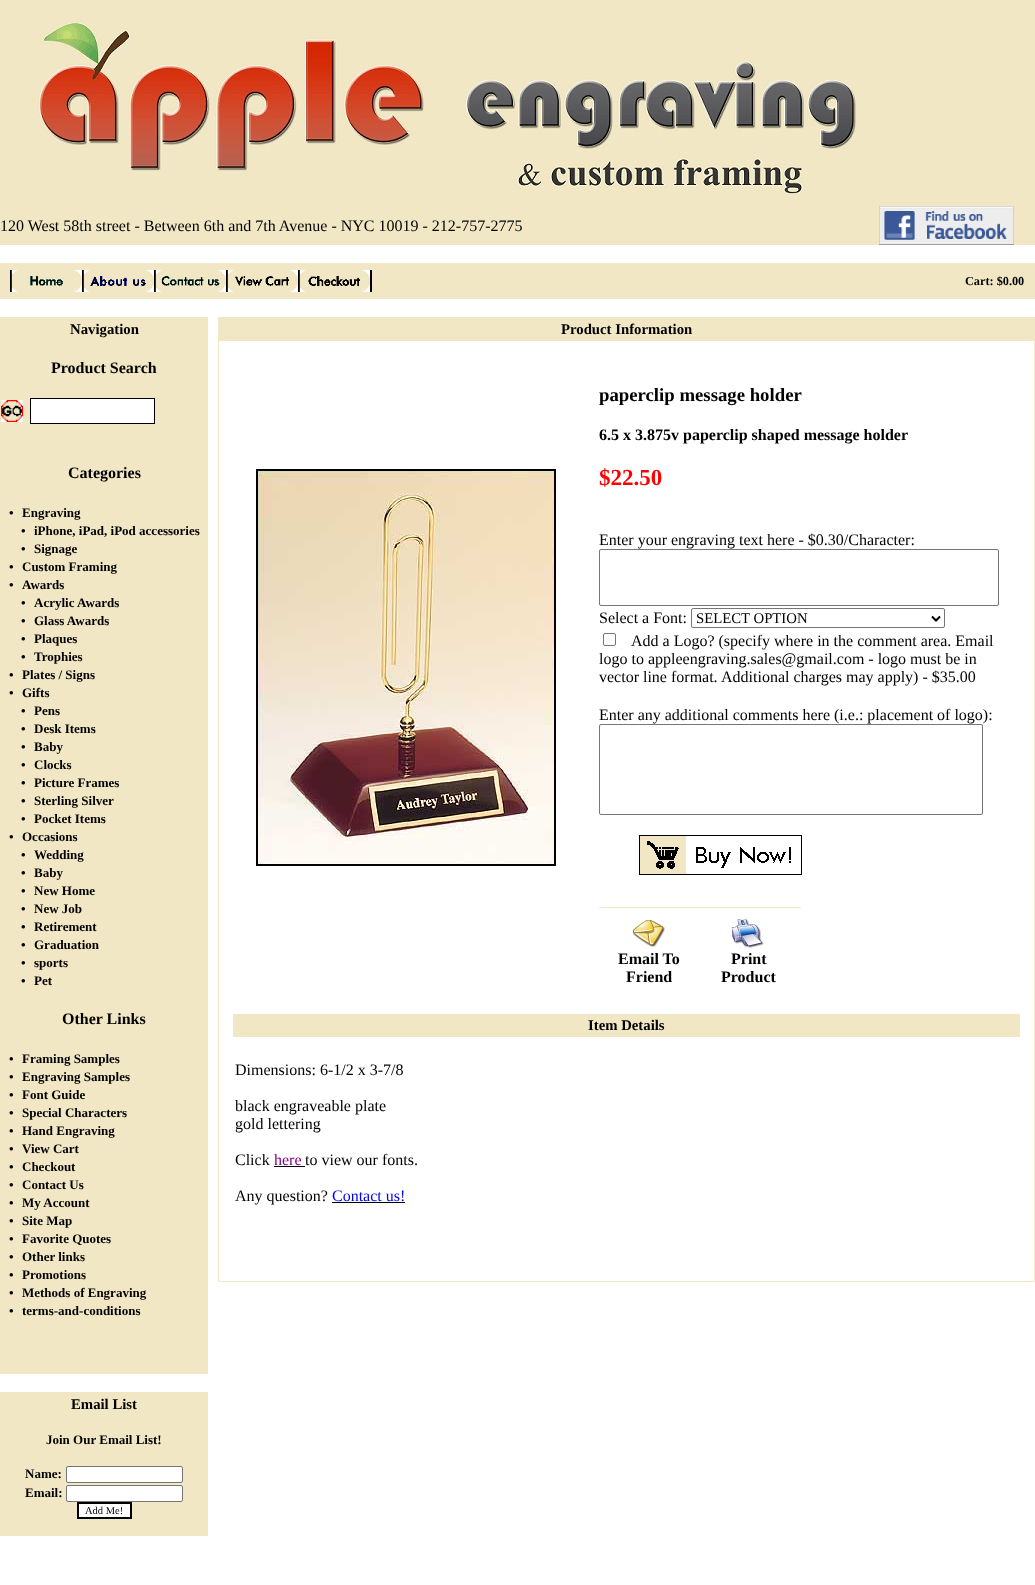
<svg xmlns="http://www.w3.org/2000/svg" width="1035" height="1585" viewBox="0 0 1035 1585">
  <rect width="100%" height="100%" fill="rgb(255,255,255)"/>
  <rect x="0" y="0" width="1035" height="245" fill="rgb(241,231,196)"/>
  <image x="32" y="16" width="825" height="190" href="pic1.png"/>
  <text x="0" y="231" font-family="Liberation Serif" font-size="16" fill="rgb(0,0,0)">120 West 58th street - Between 6th and 7th Avenue - NYC 10019 - 212-757-2775</text>
  <image x="879" y="206" width="135" height="39" href="pic2.png"/>
  <rect x="0" y="298" width="1035" height="1" fill="rgb(241,231,196)"/>
  <rect x="0" y="263" width="1035" height="35" fill="rgb(241,231,196)"/>
  <image x="10" y="270" width="72" height="22" href="pic3.png"/>
  <image x="82" y="270" width="72" height="22" href="pic4.png"/>
  <image x="154" y="270" width="72" height="22" href="pic5.png"/>
  <image x="226" y="270" width="72" height="22" href="pic6.png"/>
  <image x="298" y="270" width="72" height="22" href="pic7.png"/>
  <rect x="370" y="270" width="2" height="22" fill="rgb(0,0,0)"/>
  <text x="965" y="285" font-family="Liberation Serif" font-size="12.25" font-weight="bold" fill="rgb(0,0,0)">Cart: $0.00</text>
  <rect x="0" y="317" width="208" height="1057" fill="rgb(241,231,196)"/>
  <text x="70" y="334" font-family="Liberation Serif" font-size="14.75" font-weight="bold" fill="rgb(0,0,0)">Navigation</text>
  <text x="51" y="373" font-family="Liberation Serif" font-size="16" font-weight="bold" fill="rgb(0,0,0)">Product Search</text>
  <rect x="1" y="400" width="22" height="22" fill="rgb(255,255,255)"/>
  <image x="1" y="400" width="22" height="22" href="pic8.png"/>
  <rect x="30.5" y="398.5" width="124" height="25" fill="rgb(255,255,255)" stroke="rgb(0,0,0)"/>
  <text x="68" y="478" font-family="Liberation Serif" font-size="16" font-weight="bold" fill="rgb(0,0,0)">Categories</text>
  <g font-family="Liberation Serif" font-size="13" font-weight="bold" fill="rgb(0,0,0)">
    <text x="9" y="517">•</text>
    <text x="22" y="517">Engraving</text>
    <text x="21" y="535">•</text>
    <text x="34" y="535">iPhone, iPad, iPod accessories</text>
    <text x="21" y="553">•</text>
    <text x="34" y="553">Signage</text>
    <text x="9" y="571">•</text>
    <text x="22" y="571">Custom Framing</text>
    <text x="9" y="589">•</text>
    <text x="22" y="589">Awards</text>
    <text x="21" y="607">•</text>
    <text x="34" y="607">Acrylic Awards</text>
    <text x="21" y="625">•</text>
    <text x="34" y="625">Glass Awards</text>
    <text x="21" y="643">•</text>
    <text x="34" y="643">Plaques</text>
    <text x="21" y="661">•</text>
    <text x="34" y="661">Trophies</text>
    <text x="9" y="679">•</text>
    <text x="22" y="679">Plates / Signs</text>
    <text x="9" y="697">•</text>
    <text x="22" y="697">Gifts</text>
    <text x="21" y="715">•</text>
    <text x="34" y="715">Pens</text>
    <text x="21" y="733">•</text>
    <text x="34" y="733">Desk Items</text>
    <text x="21" y="751">•</text>
    <text x="34" y="751">Baby</text>
    <text x="21" y="769">•</text>
    <text x="34" y="769">Clocks</text>
    <text x="21" y="787">•</text>
    <text x="34" y="787">Picture Frames</text>
    <text x="21" y="805">•</text>
    <text x="34" y="805">Sterling Silver</text>
    <text x="21" y="823">•</text>
    <text x="34" y="823">Pocket Items</text>
    <text x="9" y="841">•</text>
    <text x="22" y="841">Occasions</text>
    <text x="21" y="859">•</text>
    <text x="34" y="859">Wedding</text>
    <text x="21" y="877">•</text>
    <text x="34" y="877">Baby</text>
    <text x="21" y="895">•</text>
    <text x="34" y="895">New Home</text>
    <text x="21" y="913">•</text>
    <text x="34" y="913">New Job</text>
    <text x="21" y="931">•</text>
    <text x="34" y="931">Retirement</text>
    <text x="21" y="949">•</text>
    <text x="34" y="949">Graduation</text>
    <text x="21" y="967">•</text>
    <text x="34" y="967">sports</text>
    <text x="21" y="985">•</text>
    <text x="34" y="985">Pet</text>
  </g>
  <text x="62" y="1024" font-family="Liberation Serif" font-size="16" font-weight="bold" fill="rgb(0,0,0)">Other Links</text>
  <g font-family="Liberation Serif" font-size="13" font-weight="bold" fill="rgb(0,0,0)">
    <text x="9" y="1063">•</text>
    <text x="22" y="1063">Framing Samples</text>
    <text x="9" y="1081">•</text>
    <text x="22" y="1081">Engraving Samples</text>
    <text x="9" y="1099">•</text>
    <text x="22" y="1099">Font Guide</text>
    <text x="9" y="1117">•</text>
    <text x="22" y="1117">Special Characters</text>
    <text x="9" y="1135">•</text>
    <text x="22" y="1135">Hand Engraving</text>
    <text x="9" y="1153">•</text>
    <text x="22" y="1153">View Cart</text>
    <text x="9" y="1171">•</text>
    <text x="22" y="1171">Checkout</text>
    <text x="9" y="1189">•</text>
    <text x="22" y="1189">Contact Us</text>
    <text x="9" y="1207">•</text>
    <text x="22" y="1207">My Account</text>
    <text x="9" y="1225">•</text>
    <text x="22" y="1225">Site Map</text>
    <text x="9" y="1243">•</text>
    <text x="22" y="1243">Favorite Quotes</text>
    <text x="9" y="1261">•</text>
    <text x="22" y="1261">Other links</text>
    <text x="9" y="1279">•</text>
    <text x="22" y="1279">Promotions</text>
    <text x="9" y="1297">•</text>
    <text x="22" y="1297">Methods of Engraving</text>
    <text x="9" y="1315">•</text>
    <text x="22" y="1315">terms-and-conditions</text>
  </g>
  <rect x="0" y="1392" width="208" height="144" fill="rgb(241,231,196)"/>
  <text x="71" y="1409" font-family="Liberation Serif" font-size="14.75" font-weight="bold" fill="rgb(0,0,0)">Email List</text>
  <g font-family="Liberation Serif" font-size="13" font-weight="bold" fill="rgb(0,0,0)">
    <text x="46" y="1444">Join Our Email List!</text>
    <text x="25" y="1478">Name:</text>
  </g>
  <rect x="66.5" y="1466.5" width="116" height="16" rx="1.5" fill="rgb(255,255,255)" stroke="rgb(118,118,118)"/>
  <text x="25" y="1497" font-family="Liberation Serif" font-size="13" font-weight="bold" fill="rgb(0,0,0)">Email:</text>
  <rect x="66.5" y="1485.5" width="116" height="16" rx="1.5" fill="rgb(255,255,255)" stroke="rgb(118,118,118)"/>
  <rect x="78" y="1503" width="53" height="15" fill="rgb(255,255,255)" stroke="rgb(0,0,0)" stroke-width="2"/>
  <text x="85" y="1514" font-family="Liberation Serif" font-size="10.5" fill="rgb(0,0,0)">Add Me!</text>
  <rect x="218.5" y="317.5" width="816" height="964" fill="none" stroke="rgb(241,231,196)"/>
  <rect x="219" y="318" width="815" height="23" fill="rgb(241,231,196)"/>
  <text x="561" y="334" font-family="Liberation Serif" font-size="14.75" font-weight="bold" fill="rgb(0,0,0)">Product Information</text>
  <image x="256" y="469" width="300" height="397" href="pic9.png"/>
  <text x="599" y="401" font-family="Liberation Serif" font-size="18.75" font-weight="bold" fill="rgb(0,0,0)">paperclip message holder</text>
  <text x="599" y="440" font-family="Liberation Serif" font-size="16" font-weight="bold" fill="rgb(0,0,0)">6.5 x 3.875v paperclip shaped message holder</text>
  <text x="599" y="485" font-family="Liberation Serif" font-size="23" font-weight="bold" fill="rgb(255,0,0)">$22.50</text>
  <text x="599" y="545" font-family="Liberation Serif" font-size="16" fill="rgb(0,0,0)">Enter your engraving text here - $0.30/Character:</text>
  <rect x="599.5" y="549.5" width="399" height="56" rx="1.5" fill="none" stroke="rgb(118,118,118)"/>
  <text x="599" y="623" font-family="Liberation Serif" font-size="16" fill="rgb(0,0,0)">Select a Font:</text>
  <rect x="691.5" y="608.5" width="253" height="19" rx="1.5" fill="none" stroke="rgb(118,118,118)"/>
  <path d="M932 616.5L936 620.5L940 616.5" fill="none" stroke="rgb(0,0,0)" stroke-width="2"/>
  <text x="696" y="623" font-family="Liberation Serif" font-size="14.75" fill="rgb(0,0,0)">SELECT OPTION</text>
  <rect x="603.5" y="633.5" width="12" height="12" rx="1.5" fill="none" stroke="rgb(118,118,118)"/>
  <g font-family="Liberation Serif" font-size="16" fill="rgb(0,0,0)">
    <text x="631" y="646">Add a Logo? (specify where in the comment area. Email</text>
    <text>
      <tspan x="599" y="664">logo to appleengraving.sales@gmail.com - logo must be in</tspan>
      <tspan x="599" y="682">vector line format.</tspan>
    </text>
    <text x="721" y="682">Additional charges may apply) - $35.00</text>
    <text x="599" y="720">Enter any additional comments here (i.e.: placement of logo):</text>
  </g>
  <rect x="599.5" y="724.5" width="383" height="90" rx="1.5" fill="none" stroke="rgb(118,118,118)"/>
  <image x="639" y="835" width="163" height="40" href="pic10.png"/>
  <rect x="599" y="907" width="202" height="1" fill="rgb(241,231,196)"/>
  <image x="633" y="920" width="32" height="27" href="pic11.png"/>
  <g font-family="Liberation Serif" font-size="16" font-weight="bold" fill="rgb(0,0,0)">
    <text x="618" y="964">Email To</text>
    <text x="626" y="982">Friend</text>
  </g>
  <image x="732" y="919" width="32" height="29" href="pic12.png"/>
  <g font-family="Liberation Serif" font-size="16" font-weight="bold" fill="rgb(0,0,0)">
    <text x="731" y="964">Print</text>
    <text x="721" y="982">Product</text>
  </g>
  <rect x="233" y="1014" width="787" height="23" fill="rgb(241,231,196)"/>
  <text x="588" y="1030" font-family="Liberation Serif" font-size="14.75" font-weight="bold" fill="rgb(0,0,0)">Item Details</text>
  <g font-family="Liberation Serif" font-size="16" fill="rgb(0,0,0)">
    <text x="235" y="1075">Dimensions: 6-1/2 x 3-7/8</text>
    <text>
      <tspan x="235" y="1111">black engraveable plate</tspan>
      <tspan x="235" y="1129">gold lettering</tspan>
    </text>
    <text x="235" y="1165">Click</text>
  </g>
  <text x="274" y="1165" font-family="Liberation Serif" font-size="16" fill="rgb(129,0,129)">here</text>
  <rect x="274" y="1166" width="31" height="1" fill="rgb(0,0,0)"/>
  <g font-family="Liberation Serif" font-size="16" fill="rgb(0,0,0)">
    <text x="305" y="1165">to view our fonts.</text>
    <text x="235" y="1201">Any question?</text>
  </g>
  <text x="332" y="1201" font-family="Liberation Serif" font-size="16" fill="rgb(0,0,255)">Contact us!</text>
  <rect x="332" y="1202" width="73" height="1" fill="rgb(0,0,0)"/>
</svg>
